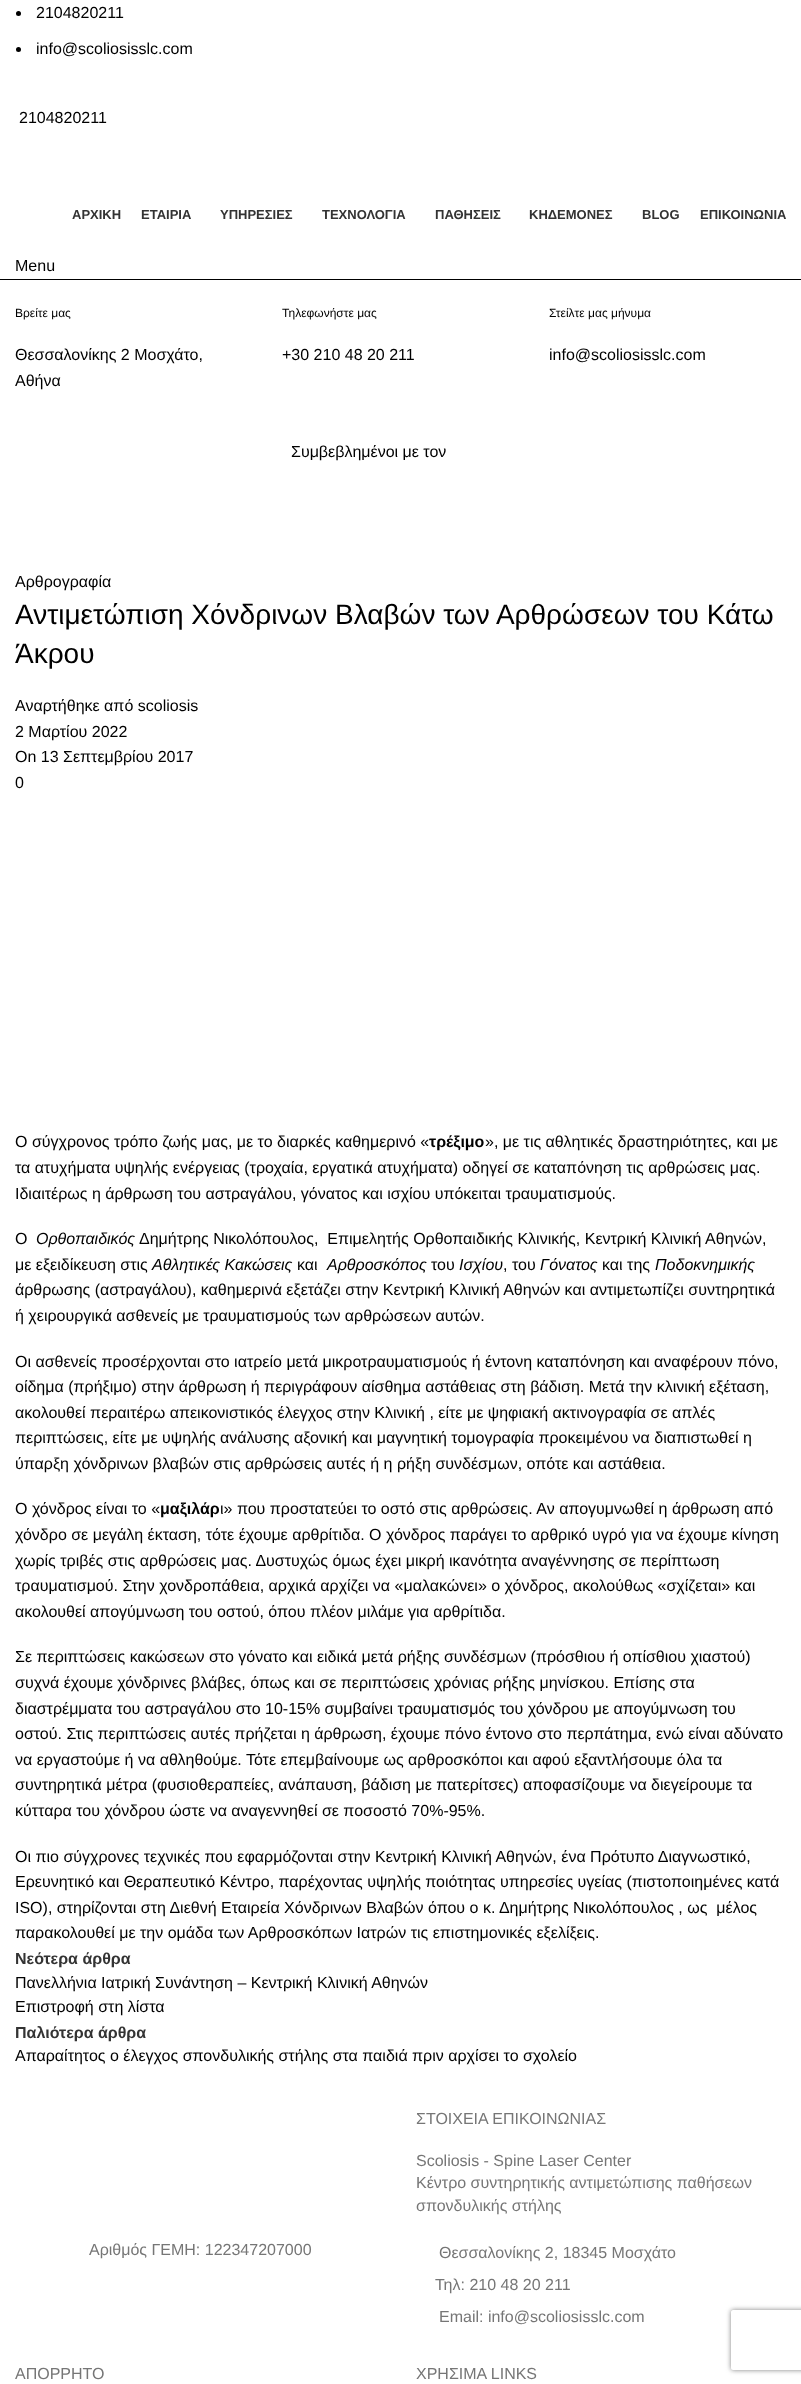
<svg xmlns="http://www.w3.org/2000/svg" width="801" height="2384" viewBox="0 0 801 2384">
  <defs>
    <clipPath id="clip1"><path d="M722 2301H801V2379H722ZM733 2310H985C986 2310 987 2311 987 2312V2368C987 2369 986 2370 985 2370H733C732 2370 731 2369 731 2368V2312C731 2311 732 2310 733 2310Z" clip-rule="evenodd"/></clipPath>
  </defs>
  <rect width="100%" height="100%" fill="rgb(255,255,255)"/>
  <circle cx="18.5" cy="13.5" r="2.5" fill="rgb(0,0,0)"/>
  <text x="36" y="18" font-family="Liberation Sans" font-size="16" fill="rgb(0,0,0)">2104820211</text>
  <circle cx="18.5" cy="49.5" r="2.5" fill="rgb(0,0,0)"/>
  <g font-family="Liberation Sans" font-size="16" fill="rgb(0,0,0)">
    <text x="36" y="54">info@scoliosisslc.com</text>
    <text x="19" y="123">2104820211</text>
  </g>
  <rect x="0" y="279" width="801" height="1" fill="rgb(0,0,0)"/>
  <g font-family="Liberation Sans" font-size="13" font-weight="bold" fill="rgb(51,51,51)">
    <text x="72" y="219">ΑΡΧΙΚΗ</text>
    <text x="141" y="219">ΕΤΑΙΡΙΑ</text>
    <text x="220" y="219">ΥΠΗΡΕΣΙΕΣ</text>
    <text x="322" y="219">ΤΕΧΝΟΛΟΓΙΑ</text>
    <text x="435" y="219">ΠΑΘΗΣΕΙΣ</text>
    <text x="529" y="219">ΚΗΔΕΜΟΝΕΣ</text>
    <text x="642" y="219">BLOG</text>
    <text x="700" y="219">ΕΠΙΚΟΙΝΩΝΙΑ</text>
  </g>
  <text x="15" y="271" font-family="Liberation Sans" font-size="16" fill="rgb(0,0,0)">Menu</text>
  <text x="15" y="317" font-family="Liberation Sans" font-size="12" fill="rgb(0,0,0)">Βρείτε μας</text>
  <g font-family="Liberation Sans" font-size="16" fill="rgb(0,0,0)">
    <text>
      <tspan x="15" y="360">Θεσσαλονίκης 2 Μοσχάτο,</tspan>
      <tspan x="15" y="386">Αθήνα</tspan>
    </text>
  </g>
  <text x="282" y="317" font-family="Liberation Sans" font-size="12" fill="rgb(0,0,0)">Τηλεφωνήστε μας</text>
  <text x="282" y="360" font-family="Liberation Sans" font-size="16" fill="rgb(0,0,0)">+30 210 48 20 211</text>
  <text x="549" y="317" font-family="Liberation Sans" font-size="12" fill="rgb(0,0,0)">Στείλτε μας μήνυμα</text>
  <g font-family="Liberation Sans" font-size="16" fill="rgb(0,0,0)">
    <text x="549" y="360">info@scoliosisslc.com</text>
    <text x="291" y="457">Συμβεβλημένοι με τον</text>
    <text x="15" y="587">Αρθρογραφία</text>
  </g>
  <g font-family="Liberation Sans" font-size="28" fill="rgb(0,0,0)">
    <text>
      <tspan x="15" y="624">Αντιμετώπιση Χόνδρινων Βλαβών των Αρθρώσεων του Κάτω</tspan>
      <tspan x="15" y="663">Άκρου</tspan>
    </text>
  </g>
  <g font-family="Liberation Sans" font-size="16" fill="rgb(0,0,0)">
    <text>
      <tspan x="15" y="711">Αναρτήθηκε από scoliosis</tspan>
      <tspan x="15" y="737">2 Μαρτίου 2022</tspan>
      <tspan x="15" y="762">On 13 Σεπτεμβρίου 2017</tspan>
      <tspan x="15" y="788">0</tspan>
    </text>
    <text x="15" y="1147">Ο σύγχρονος τρόπο ζωής μας, με το διαρκές καθημερινό «</text>
  </g>
  <text x="429" y="1147" font-family="Liberation Sans" font-size="16" font-weight="bold" fill="rgb(0,0,0)">τρέξιμο</text>
  <g font-family="Liberation Sans" font-size="16" fill="rgb(0,0,0)">
    <text x="485" y="1147">», με τις αθλητικές δραστηριότητες, και με</text>
    <text>
      <tspan x="15" y="1173">τα ατυχήματα υψηλής ενέργειας (τροχαία, εργατικά ατυχήματα) οδηγεί σε καταπόνηση τις αρθρώσεις μας.</tspan>
      <tspan x="15" y="1199">Ιδιαιτέρως η άρθρωση του αστραγάλου, γόνατος και ισχίου υπόκειται τραυματισμούς.</tspan>
    </text>
    <text x="15" y="1244">Ο</text>
  </g>
  <text x="36" y="1244" font-family="Liberation Sans" font-size="16" font-style="italic" fill="rgb(0,0,0)">Ορθοπαιδικός</text>
  <g font-family="Liberation Sans" font-size="16" fill="rgb(0,0,0)">
    <text x="139" y="1244" xml:space="preserve">Δημήτρης Νικολόπουλος,  Επιμελητής Ορθοπαιδικής Κλινικής, Κεντρική Κλινική Αθηνών,</text>
    <text x="15" y="1270">με εξειδίκευση στις</text>
  </g>
  <text x="152" y="1270" font-family="Liberation Sans" font-size="16" font-style="italic" fill="rgb(0,0,0)">Αθλητικές Κακώσεις</text>
  <text x="297" y="1270" font-family="Liberation Sans" font-size="16" fill="rgb(0,0,0)">και</text>
  <text x="327" y="1270" font-family="Liberation Sans" font-size="16" font-style="italic" fill="rgb(0,0,0)">Αρθροσκόπος</text>
  <text x="431" y="1270" font-family="Liberation Sans" font-size="16" fill="rgb(0,0,0)">του</text>
  <text x="459" y="1270" font-family="Liberation Sans" font-size="16" font-style="italic" fill="rgb(0,0,0)">Ισχίου</text>
  <text x="503" y="1270" font-family="Liberation Sans" font-size="16" fill="rgb(0,0,0)">, του</text>
  <text x="540" y="1270" font-family="Liberation Sans" font-size="16" font-style="italic" fill="rgb(0,0,0)">Γόνατος</text>
  <text x="602" y="1270" font-family="Liberation Sans" font-size="16" fill="rgb(0,0,0)">και της</text>
  <text x="655" y="1270" font-family="Liberation Sans" font-size="16" font-style="italic" fill="rgb(0,0,0)">Ποδοκνημικής</text>
  <g font-family="Liberation Sans" font-size="16" fill="rgb(0,0,0)">
    <text>
      <tspan x="15" y="1295">άρθρωσης (αστραγάλου), καθημερινά εξετάζει στην Κεντρική Κλινική Αθηνών και αντιμετωπίζει συντηρητικά</tspan>
      <tspan x="15" y="1321">ή χειρουργικά ασθενείς με τραυματισμούς των αρθρώσεων αυτών.</tspan>
    </text>
    <text>
      <tspan x="15" y="1367">Οι ασθενείς προσέρχονται στο ιατρείο μετά μικροτραυματισμούς ή έντονη καταπόνηση και αναφέρουν πόνο,</tspan>
      <tspan x="15" y="1392">οίδημα (πρήξιμο) στην άρθρωση ή περιγράφουν αίσθημα αστάθειας στη βάδιση. Μετά την κλινική εξέταση,</tspan>
      <tspan x="15" y="1418">ακολουθεί περαιτέρω απεικονιστικός έλεγχος στην Κλινική , είτε με ψηφιακή ακτινογραφία σε απλές</tspan>
      <tspan x="15" y="1443">περιπτώσεις, είτε με υψηλής ανάλυσης αξονική και μαγνητική τομογραφία προκειμένου να διαπιστωθεί η</tspan>
      <tspan x="15" y="1469">ύπαρξη χόνδρινων βλαβών στις αρθρώσεις αυτές ή η ρήξη συνδέσμων, οπότε και αστάθεια.</tspan>
    </text>
    <text x="15" y="1514">Ο χόνδρος είναι το «</text>
  </g>
  <text x="160" y="1514" font-family="Liberation Sans" font-size="16" font-weight="bold" fill="rgb(0,0,0)">μαξιλάρ</text>
  <g font-family="Liberation Sans" font-size="16" fill="rgb(0,0,0)">
    <text x="220" y="1514">ι» που προστατεύει το οστό στις αρθρώσεις. Αν απογυμνωθεί η άρθρωση από</text>
    <text>
      <tspan x="15" y="1540">χόνδρο σε μεγάλη έκταση, τότε έχουμε αρθρίτιδα. Ο χόνδρος παράγει το αρθρικό υγρό για να έχουμε κίνηση</tspan>
      <tspan x="15" y="1566">χωρίς τριβές στις αρθρώσεις μας. Δυστυχώς όμως έχει μικρή ικανότητα αναγέννησης σε περίπτωση</tspan>
      <tspan x="15" y="1591">τραυματισμού. Στην χονδροπάθεια, αρχικά αρχίζει να «μαλακώνει» ο χόνδρος, ακολούθως «σχίζεται» και</tspan>
      <tspan x="15" y="1617">ακολουθεί απογύμνωση του οστού, όπου πλέον μιλάμε για αρθρίτιδα.</tspan>
    </text>
    <text>
      <tspan x="15" y="1662">Σε περιπτώσεις κακώσεων στο γόνατο και ειδικά μετά ρήξης συνδέσμων (πρόσθιου ή οπίσθιου χιαστού)</tspan>
      <tspan x="15" y="1688">συχνά έχουμε χόνδρινες βλάβες, όπως και σε περιπτώσεις χρόνιας ρήξης μηνίσκου. Επίσης στα</tspan>
      <tspan x="15" y="1714">διαστρέμματα του αστραγάλου στο 10-15% συμβαίνει τραυματισμός του χόνδρου με απογύμνωση του</tspan>
      <tspan x="15" y="1739">οστού. Στις περιπτώσεις αυτές πρήζεται η άρθρωση, έχουμε πόνο έντονο στο περπάτημα, ενώ είναι αδύνατο</tspan>
      <tspan x="15" y="1765">να εργαστούμε ή να αθληθούμε. Τότε επεμβαίνουμε ως αρθροσκόποι και αφού εξαντλήσουμε όλα τα</tspan>
      <tspan x="15" y="1790">συντηρητικά μέτρα (φυσιοθεραπείες, ανάπαυση, βάδιση με πατερίτσες) αποφασίζουμε να διεγείρουμε τα</tspan>
      <tspan x="15" y="1816">κύτταρα του χόνδρου ώστε να αναγεννηθεί σε ποσοστό 70%-95%.</tspan>
    </text>
    <text xml:space="preserve"><tspan x="15" y="1862">Οι πιο σύγχρονες τεχνικές που εφαρμόζονται στην Κεντρική Κλινική Αθηνών, ένα Πρότυπο Διαγνωστικό,</tspan><tspan x="15" y="1887">Ερευνητικό και Θεραπευτικό Κέντρο, παρέχοντας υψηλής ποιότητας υπηρεσίες υγείας (πιστοποιημένες κατά</tspan><tspan x="15" y="1913">ISO), στηρίζονται στη Διεθνή Εταιρεία Χόνδρινων Βλαβών όπου ο κ. Δημήτρης Νικολόπουλος , ως  μέλος</tspan><tspan x="15" y="1938">παρακολουθεί με την ομάδα των Αρθροσκόπων Ιατρών τις επιστημονικές εξελίξεις.</tspan></text>
  </g>
  <text x="15" y="1964" font-family="Liberation Sans" font-size="16" font-weight="bold" fill="rgb(51,51,51)">Νεότερα άρθρα</text>
  <g font-family="Liberation Sans" font-size="16" fill="rgb(0,0,0)">
    <text>
      <tspan x="15" y="1988">Πανελλήνια Ιατρική Συνάντηση – Κεντρική Κλινική Αθηνών</tspan>
      <tspan x="15" y="2012">Επιστροφή στη λίστα</tspan>
    </text>
  </g>
  <text x="15" y="2038" font-family="Liberation Sans" font-size="16" font-weight="bold" fill="rgb(51,51,51)">Παλιότερα άρθρα</text>
  <text x="15" y="2061" font-family="Liberation Sans" font-size="16" fill="rgb(0,0,0)">Απαραίτητος ο έλεγχος σπονδυλικής στήλης στα παιδιά πριν αρχίσει το σχολείο</text>
  <g font-family="Liberation Sans" font-size="16" fill="rgb(118,118,118)">
    <text x="89" y="2255">Αριθμός ΓΕΜΗ: 122347207000</text>
    <text x="416" y="2124">ΣΤΟΙΧΕΙΑ ΕΠΙΚΟΙΝΩΝΙΑΣ</text>
    <text>
      <tspan x="416" y="2166">Scoliosis - Spine Laser Center</tspan>
      <tspan x="416" y="2188">Κέντρο συντηρητικής αντιμετώπισης παθήσεων</tspan>
      <tspan x="416" y="2211">σπονδυλικής στήλης</tspan>
    </text>
    <text x="439" y="2258">Θεσσαλονίκης 2, 18345 Μοσχάτο</text>
    <text x="435" y="2290">Τηλ: 210 48 20 211</text>
    <text x="439" y="2322">Email: info@scoliosisslc.com</text>
    <text x="15" y="2379">ΑΠΟΡΡΗΤΟ</text>
    <text x="416" y="2379">ΧΡΗΣΙΜΑ LINKS</text>
  </g>
  <g clip-path="url(#clip1)">
    <rect x="731" y="2310" width="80" height="60" rx="2" fill="rgb(128,128,128)" filter="blur(2.5px)"/>
  </g>
</svg>
